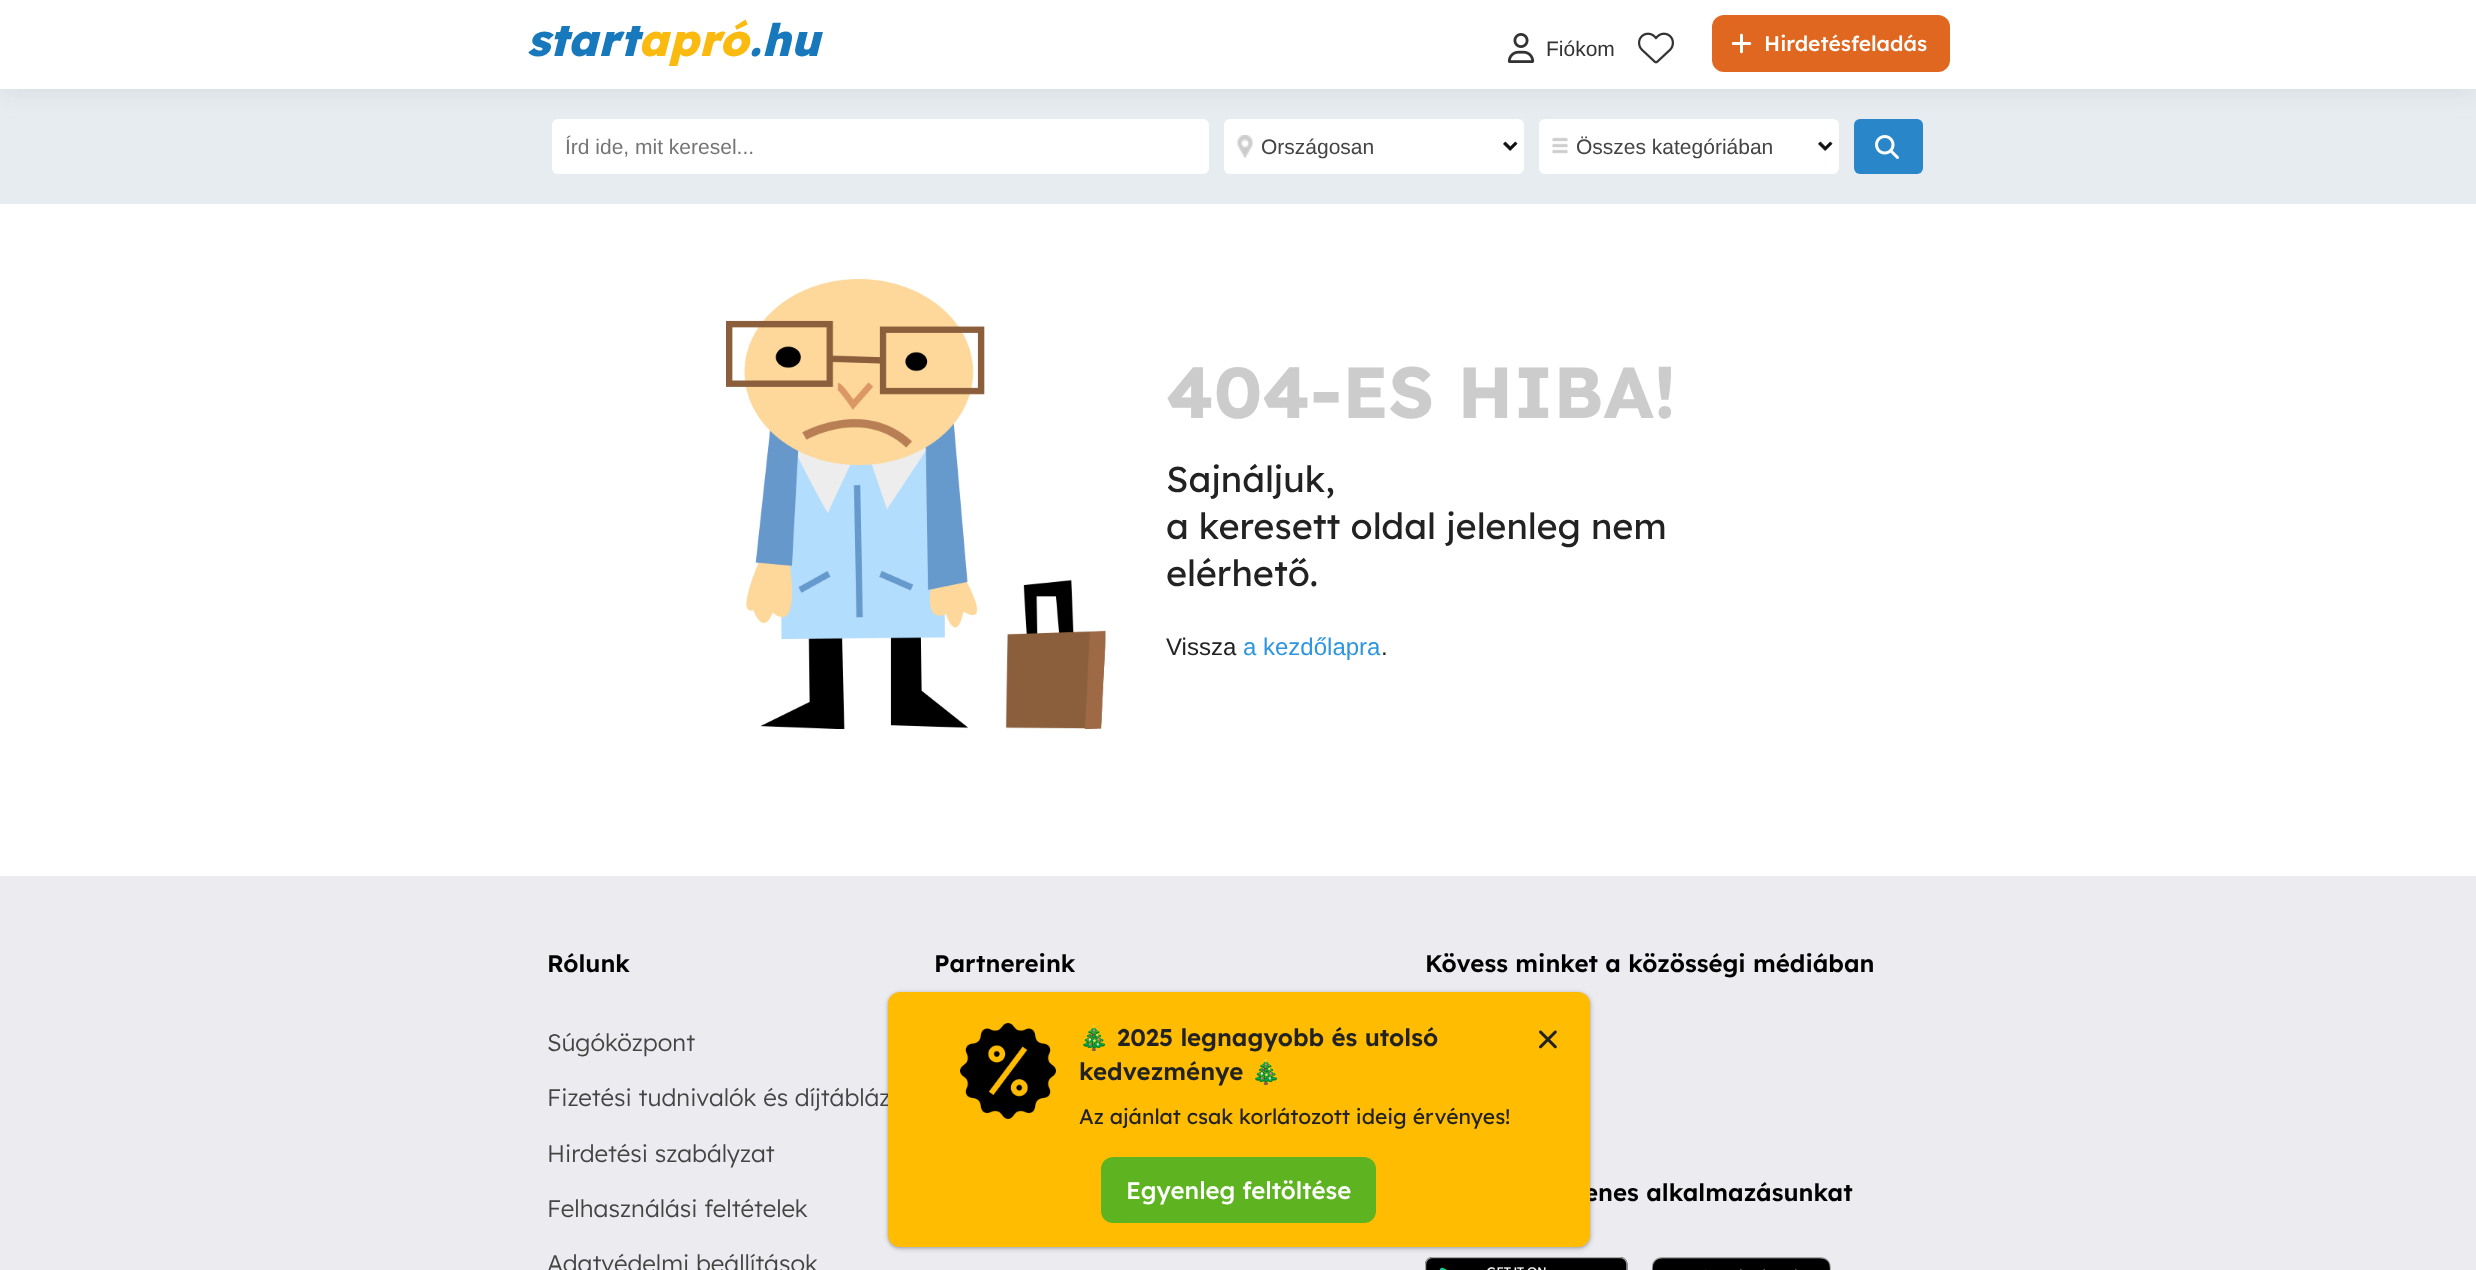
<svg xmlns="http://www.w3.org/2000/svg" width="2476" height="1270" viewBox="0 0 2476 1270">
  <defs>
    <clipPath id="clip1"><rect x="1262" y="134" width="237" height="27"/></clipPath>
    <clipPath id="clip2"><rect x="1577" y="134" width="237" height="27"/></clipPath>
  </defs>
  <rect width="100%" height="100%" fill="rgb(255,255,255)"/>
  <rect x="0" y="89" width="2476" height="115" fill="rgb(230,236,240)"/>
  <rect x="552" y="119" width="657" height="55" rx="6" fill="rgb(255,255,255)"/>
  <rect x="1224" y="119" width="300" height="55" rx="6" fill="rgb(255,255,255)"/>
  <rect x="1539" y="119" width="300" height="55" rx="6" fill="rgb(255,255,255)"/>
  <rect x="1854" y="119" width="69" height="55" rx="6" fill="rgb(41,134,200)"/>
  <rect x="0" y="6" width="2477" height="89" fill="rgba(170,170,170,0.19)" filter="blur(11px)"/>
  <rect x="0" y="0" width="2476" height="89" fill="rgb(255,255,255)"/>
  <text x="527" y="56" font-family="Lexend" font-size="45" font-weight="800" font-style="italic" fill="rgb(23,120,188)">start</text>
  <text x="638" y="56" font-family="Lexend" font-size="45" font-weight="800" font-style="italic" fill="rgb(251,186,16)">apró</text>
  <text x="749" y="56" font-family="Lexend" font-size="45" font-weight="800" font-style="italic" fill="rgb(23,120,188)">.hu</text>
  <image x="1507" y="33" width="28" height="30" href="pic1.png"/>
  <text x="1546" y="56" font-family="Liberation Sans" font-size="21" fill="rgb(51,51,51)">Fiókom</text>
  <image x="1638" y="32" width="36" height="32" href="pic2.png"/>
  <rect x="1712" y="15" width="238" height="57" rx="12" fill="rgb(224,103,32)"/>
  <image x="1731" y="33" width="21" height="21" href="pic3.png"/>
  <text x="1764" y="51" font-family="Lexend" font-size="21" font-weight="500" fill="rgb(255,255,255)">Hirdetésfeladás</text>
  <text x="565" y="154" font-family="Liberation Sans" font-size="21" fill="rgb(117,117,117)">Írd ide, mit keresel...</text>
  <image x="1237" y="135" width="281" height="23" href="pic4.png"/>
  <path d="M1504 143L1510 149L1516 143" fill="none" stroke="rgba(0,0,0,0.75)" stroke-width="3"/>
  <g clip-path="url(#clip1)">
    <text x="1261" y="154" font-family="Liberation Sans" font-size="21" fill="rgb(68,68,68)">Országosan</text>
  </g>
  <image x="1552" y="137" width="281" height="17" href="pic5.png"/>
  <path d="M1819 143L1825 149L1831 143" fill="none" stroke="rgba(0,0,0,0.75)" stroke-width="3"/>
  <g clip-path="url(#clip2)">
    <text x="1576" y="154" font-family="Liberation Sans" font-size="21" fill="rgb(68,68,68)">Összes kategóriában</text>
  </g>
  <image x="1875" y="135" width="24" height="24" href="pic6.png"/>
  <image x="726" y="279" width="380" height="450" href="pic7.png"/>
  <text x="1166" y="418" font-family="Lexend" font-size="72" font-weight="bold" fill="rgb(204,204,204)">404-ES HIBA!</text>
  <g font-family="Lexend" font-size="36" fill="rgb(34,34,34)">
    <text>
      <tspan x="1166" y="492">Sajnáljuk,</tspan>
      <tspan x="1166" y="539">a keresett oldal jelenleg nem</tspan>
      <tspan x="1166" y="586">elérhető.</tspan>
    </text>
  </g>
  <text x="1166" y="655" font-family="Liberation Sans" font-size="24" fill="rgb(34,34,34)">Vissza</text>
  <text x="1243" y="655" font-family="Liberation Sans" font-size="24" fill="rgb(46,149,223)">a kezdőlapra</text>
  <text x="1381" y="655" font-family="Liberation Sans" font-size="24" fill="rgb(34,34,34)">.</text>
  <rect x="0" y="876" width="2476" height="394" fill="rgb(236,236,240)"/>
  <text x="547" y="972" font-family="Lexend" font-size="24" font-weight="600" fill="rgb(0,0,0)">Rólunk</text>
  <g font-family="Lexend" font-size="24" font-weight="300" fill="rgb(68,68,68)">
    <text x="547" y="1051">Súgóközpont</text>
    <text x="547" y="1106">Fizetési tudnivalók és díjtábláz</text>
    <text x="547" y="1162">Hirdetési szabályzat</text>
    <text x="547" y="1217">Felhasználási feltételek</text>
    <text x="547" y="1272">Adatvédelmi beállítások</text>
  </g>
  <g font-family="Lexend" font-size="24" font-weight="600" fill="rgb(0,0,0)">
    <text x="934" y="972">Partnereink</text>
    <text x="1425" y="972">Kövess minket a közösségi médiában</text>
    <text x="1584" y="1201">enes alkalmazásunkat</text>
  </g>
  <image x="1425" y="1257" width="203" height="13" href="pic8.png"/>
  <image x="1652" y="1257" width="179" height="13" href="pic9.png"/>
  <rect x="887" y="992" width="705" height="258" rx="14" fill="rgba(60,64,67,0.15)" filter="blur(2px)"/>
  <rect x="888" y="993" width="702" height="255" rx="12" fill="rgba(60,64,67,0.3)" filter="blur(1.5px)"/>
  <rect x="888" y="992" width="702" height="255" rx="12" fill="rgb(255,188,0)"/>
  <image x="960" y="1023" width="96" height="96" href="pic10.png"/>
  <text x="1079" y="1046" font-family="Noto Color Emoji" font-size="24" font-weight="bold" fill="rgb(34,34,34)">🎄</text>
  <g font-family="Lexend" font-size="24" font-weight="600" fill="rgb(34,34,34)">
    <text x="1117" y="1046">2025 legnagyobb és utolsó</text>
    <text x="1079" y="1080">kedvezménye</text>
  </g>
  <text x="1251" y="1080" font-family="Noto Color Emoji" font-size="24" font-weight="bold" fill="rgb(34,34,34)">🎄</text>
  <text x="1079" y="1124" font-family="Lexend" font-size="21" fill="rgb(34,34,34)">Az ajánlat csak korlátozott ideig érvényes!</text>
  <image x="1539" y="1030" width="18" height="19" href="pic11.png"/>
  <rect x="1101" y="1157" width="275" height="66" rx="12" fill="rgb(93,180,32)"/>
  <text x="1126" y="1199" font-family="Lexend" font-size="24" font-weight="500" fill="rgb(255,255,255)">Egyenleg feltöltése</text>
</svg>
